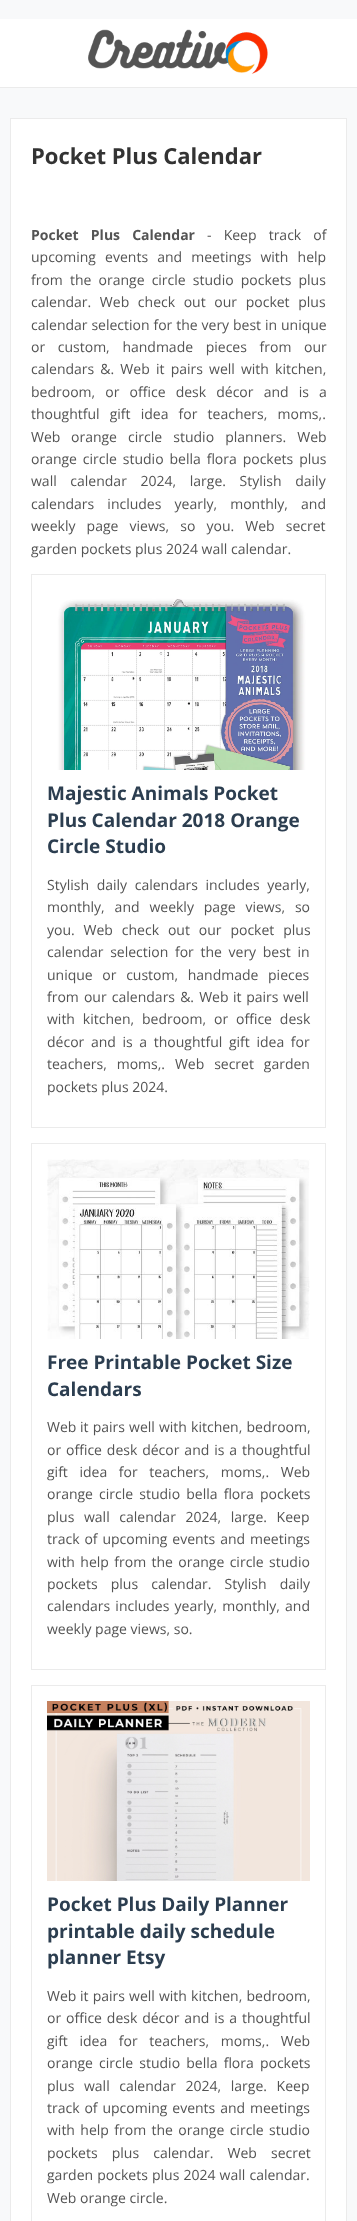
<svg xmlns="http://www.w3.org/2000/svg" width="357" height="2221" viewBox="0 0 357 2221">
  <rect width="100%" height="100%" fill="rgb(248,249,250)"/>
  <rect x="0" y="19" width="357" height="68" fill="rgb(255,255,255)"/>
  <rect x="0" y="87" width="357" height="1" fill="rgb(235,235,235)"/>
  <image x="88" y="29" width="180" height="45" href="pic1.png"/>
  <rect x="10.5" y="118.5" width="336" height="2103" fill="rgb(255,255,255)" stroke="rgb(235,235,235)"/>
  <text x="31" y="164" font-family="Open Sans" font-size="22" font-weight="bold" fill="rgb(51,51,51)">Pocket Plus Calendar</text>
  <text x="31" y="240" word-spacing="8.5" font-family="Open Sans" font-size="14" font-weight="bold" fill="rgb(84,84,84)">Pocket Plus Calendar</text>
  <g font-family="Open Sans" font-size="14" fill="rgb(84,84,84)">
    <text x="207" y="240" word-spacing="8.5">- Keep track of</text>
    <text>
      <tspan x="31" y="262" word-spacing="5.5">upcoming events and meetings with help</tspan>
      <tspan x="31" y="285" word-spacing="3.5">from the orange circle studio pockets plus</tspan>
      <tspan x="31" y="307" word-spacing="5">calendar. Web check out our pocket plus</tspan>
      <tspan x="31" y="330" word-spacing="0.25">calendar selection for the very best in unique</tspan>
      <tspan x="31" y="352" word-spacing="9">or custom, handmade pieces from our</tspan>
      <tspan x="31" y="374" word-spacing="2.5">calendars &amp;. Web</tspan>
    </text>
    <text x="156" y="374" word-spacing="2.5">it pairs well with kitchen,</text>
    <text>
      <tspan x="31" y="397" word-spacing="6.5">bedroom, or office desk décor and is a</tspan>
      <tspan x="31" y="419" word-spacing="6.5">thoughtful gift idea for teachers, moms,.</tspan>
      <tspan x="31" y="442">Web</tspan>
    </text>
    <text x="71" y="442" word-spacing="7.5">orange circle studio planners. Web</text>
    <text>
      <tspan x="31" y="464" word-spacing="2.25">orange circle studio bella flora pockets plus</tspan>
      <tspan x="31" y="486" word-spacing="10">wall calendar 2024, large. Stylish daily</tspan>
      <tspan x="31" y="509" word-spacing="9.5">calendars includes yearly, monthly, and</tspan>
      <tspan x="31" y="531" word-spacing="7.5">weekly page views, so you. Web secret</tspan>
      <tspan x="31" y="554">garden pockets plus 2024 wall calendar.</tspan>
    </text>
  </g>
  <rect x="31.5" y="574.5" width="294" height="553" fill="none" stroke="rgb(235,235,235)"/>
  <image x="47" y="590" width="263" height="180" href="pic2.png"/>
  <g font-family="Open Sans" font-size="19" font-weight="bold" fill="rgb(44,62,80)">
    <text>
      <tspan x="47" y="800">Majestic Animals Pocket</tspan>
      <tspan x="47" y="827">Plus Calendar 2018 Orange</tspan>
      <tspan x="47" y="853">Circle Studio</tspan>
    </text>
  </g>
  <g font-family="Open Sans" font-size="14" fill="rgb(84,84,84)">
    <text>
      <tspan x="47" y="890" word-spacing="4">Stylish daily calendars includes yearly,</tspan>
      <tspan x="47" y="912" word-spacing="6.25">monthly, and weekly page views, so</tspan>
      <tspan x="47" y="935" word-spacing="5.25">you. Web check out our pocket plus</tspan>
      <tspan x="47" y="957" word-spacing="3">calendar selection for the very best in</tspan>
      <tspan x="47" y="980" word-spacing="6">unique or custom, handmade pieces</tspan>
      <tspan x="47" y="1002" word-spacing="1.5">from our calendars &amp;. Web</tspan>
    </text>
    <text x="233" y="1002" word-spacing="1">it pairs well</text>
    <text>
      <tspan x="47" y="1024" word-spacing="4.25">with kitchen, bedroom, or office desk</tspan>
      <tspan x="47" y="1047" word-spacing="3">décor and is a thoughtful gift idea for</tspan>
      <tspan x="47" y="1069" word-spacing="6.25">teachers, moms,. Web secret garden</tspan>
      <tspan x="47" y="1092">pockets plus 2024.</tspan>
    </text>
  </g>
  <rect x="31.5" y="1143.5" width="294" height="526" fill="none" stroke="rgb(235,235,235)"/>
  <image x="47" y="1159" width="263" height="180" href="pic3.png"/>
  <g font-family="Open Sans" font-size="19" font-weight="bold" fill="rgb(44,62,80)">
    <text>
      <tspan x="47" y="1369">Free Printable Pocket Size</tspan>
      <tspan x="47" y="1396">Calendars</tspan>
    </text>
  </g>
  <g font-family="Open Sans" font-size="14" fill="rgb(84,84,84)">
    <text x="47" y="1432">Web</text>
    <text x="80" y="1432" word-spacing="0.5">it pairs well with kitchen, bedroom,</text>
    <text>
      <tspan x="47" y="1455" word-spacing="1.25">or office desk décor and is a thoughtful</tspan>
      <tspan x="47" y="1477" word-spacing="8">gift idea for teachers, moms,. Web</tspan>
      <tspan x="47" y="1499" word-spacing="2.5">orange circle studio bella flora pockets</tspan>
      <tspan x="47" y="1522" word-spacing="6">plus wall calendar 2024, large. Keep</tspan>
      <tspan x="47" y="1544" word-spacing="1.25">track of upcoming events and meetings</tspan>
      <tspan x="47" y="1567" word-spacing="1.75">with help from the orange circle studio</tspan>
      <tspan x="47" y="1589" word-spacing="9.5">pockets plus calendar. Stylish daily</tspan>
      <tspan x="47" y="1611" word-spacing="1.5">calendars includes yearly, monthly, and</tspan>
      <tspan x="47" y="1634">weekly page views, so.</tspan>
    </text>
  </g>
  <rect x="31.5" y="1685.5" width="294" height="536" fill="none" stroke="rgb(235,235,235)"/>
  <image x="47" y="1701" width="263" height="180" href="pic4.png"/>
  <g font-family="Open Sans" font-size="19" font-weight="bold" fill="rgb(44,62,80)">
    <text>
      <tspan x="47" y="1911">Pocket Plus Daily Planner</tspan>
      <tspan x="47" y="1938">printable daily schedule</tspan>
      <tspan x="47" y="1964">planner Etsy</tspan>
    </text>
  </g>
  <g font-family="Open Sans" font-size="14" fill="rgb(84,84,84)">
    <text x="47" y="2001">Web</text>
    <text x="80" y="2001" word-spacing="0.5">it pairs well with kitchen, bedroom,</text>
    <text>
      <tspan x="47" y="2023" word-spacing="1.25">or office desk décor and is a thoughtful</tspan>
      <tspan x="47" y="2046" word-spacing="8">gift idea for teachers, moms,. Web</tspan>
      <tspan x="47" y="2068" word-spacing="2.5">orange circle studio bella flora pockets</tspan>
      <tspan x="47" y="2091" word-spacing="6">plus wall calendar 2024, large. Keep</tspan>
      <tspan x="47" y="2113" word-spacing="1.25">track of upcoming events and meetings</tspan>
      <tspan x="47" y="2135" word-spacing="1.75">with help from the orange circle studio</tspan>
      <tspan x="47" y="2158" word-spacing="10.5">pockets plus calendar. Web secret</tspan>
      <tspan x="47" y="2180" word-spacing="0.5">garden pockets plus 2024 wall calendar.</tspan>
      <tspan x="47" y="2203">Web orange circle.</tspan>
    </text>
  </g>
</svg>
